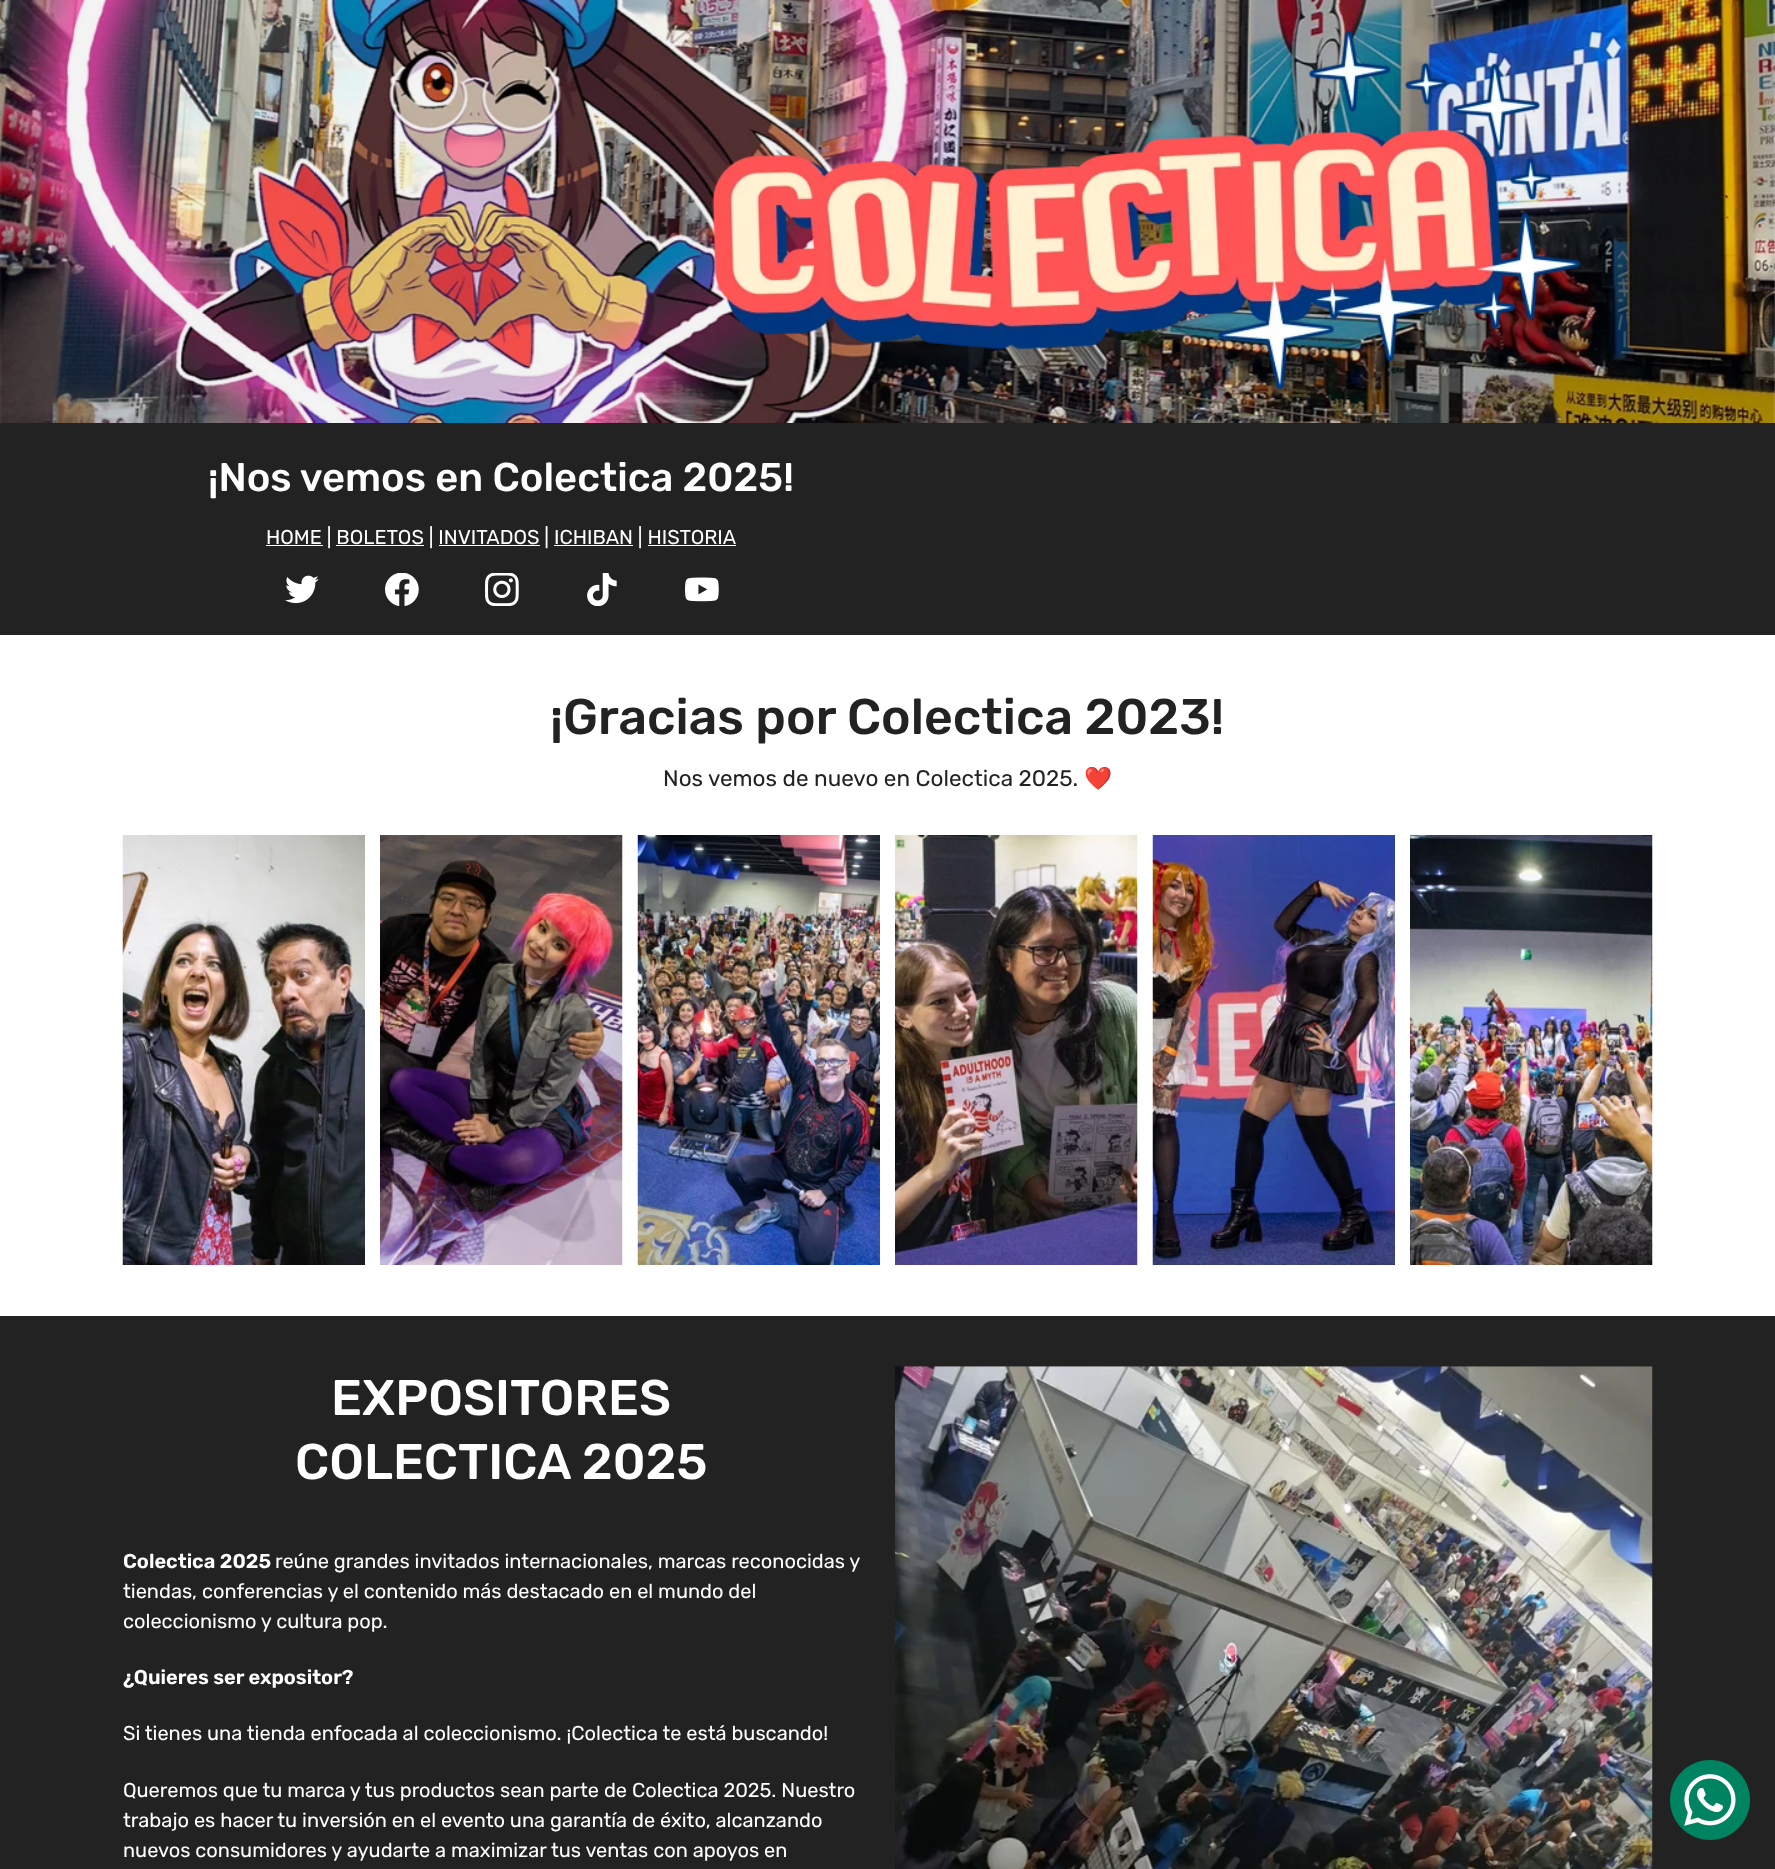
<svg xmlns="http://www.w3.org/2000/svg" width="1775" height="1869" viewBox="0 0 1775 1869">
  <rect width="100%" height="100%" fill="rgb(255,255,255)"/>
  <image x="0" y="0" width="1775" height="423" href="pic1.png"/>
  <image x="712" y="30" width="869" height="360" href="pic2.png"/>
  <rect x="0" y="423" width="1775" height="212" fill="rgb(34,34,34)"/>
  <text x="208" y="491" font-family="Rubik" font-size="40" font-weight="300" fill="rgb(255,255,255)">¡Nos vemos en Colectica 2025!</text>
  <rect x="266" y="545" width="57" height="1" fill="rgb(255,255,255)"/>
  <text x="266" y="544" font-family="'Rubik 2'" font-size="20" font-weight="300" fill="rgb(255,255,255)">HOME | BOLETOS | INVITADOS | ICHIBAN | HISTORIA</text>
  <rect x="336" y="545" width="88" height="1" fill="rgb(255,255,255)"/>
  <rect x="439" y="545" width="101" height="1" fill="rgb(255,255,255)"/>
  <rect x="554" y="545" width="79" height="1" fill="rgb(255,255,255)"/>
  <rect x="648" y="545" width="88" height="1" fill="rgb(255,255,255)"/>
  <image x="285" y="575" width="34" height="29" href="pic3.png"/>
  <image x="385" y="573" width="34" height="33" href="pic4.png"/>
  <image x="485" y="573" width="34" height="33" href="pic5.png"/>
  <image x="587" y="573" width="30" height="33" href="pic6.png"/>
  <image x="685" y="577" width="34" height="25" href="pic7.png"/>
  <text x="550" y="734" font-family="Rubik" font-size="50" font-weight="300" fill="rgb(34,34,34)">¡Gracias por Colectica 2023!</text>
  <text x="663" y="786" font-family="'Rubik 2'" font-size="22.5" font-weight="300" fill="rgb(34,34,34)">Nos vemos de nuevo en Colectica 2025.</text>
  <text x="1084" y="786" font-family="Noto Color Emoji" font-size="22.5" fill="rgb(34,34,34)">❤️</text>
  <image x="122" y="835" width="243" height="430" href="pic8.png"/>
  <image x="380" y="835" width="243" height="430" href="pic9.png"/>
  <image x="637" y="835" width="243" height="430" href="pic10.png"/>
  <image x="895" y="835" width="243" height="430" href="pic11.png"/>
  <image x="1152" y="835" width="243" height="430" href="pic12.png"/>
  <image x="1410" y="835" width="243" height="430" href="pic13.png"/>
  <rect x="0" y="1316" width="1775" height="553" fill="rgb(34,34,34)"/>
  <g font-family="Rubik" font-size="50" font-weight="300" fill="rgb(255,255,255)">
    <text x="331" y="1415">EXPOSITORES</text>
    <text x="295" y="1479">COLECTICA 2025</text>
  </g>
  <image x="895" y="1366" width="758" height="503" href="pic14.png"/>
  <text x="123" y="1568" font-family="Rubik" font-size="20" font-weight="600" fill="rgb(255,255,255)">Colectica 2025</text>
  <g font-family="'Rubik 2'" font-size="20" font-weight="300" fill="rgb(255,255,255)">
    <text x="275" y="1568">reúne grandes invitados internacionales, marcas reconocidas y</text>
    <text>
      <tspan x="123" y="1598">tiendas, conferencias y el contenido más destacado en el mundo del</tspan>
      <tspan x="123" y="1628">coleccionismo y cultura pop.</tspan>
    </text>
  </g>
  <text x="123" y="1684" font-family="Rubik" font-size="20" font-weight="600" fill="rgb(255,255,255)">¿Quieres ser expositor?</text>
  <g font-family="'Rubik 2'" font-size="20" font-weight="300" fill="rgb(255,255,255)">
    <text x="123" y="1740">Si tienes una tienda enfocada al coleccionismo. ¡Colectica te está buscando!</text>
    <text>
      <tspan x="123" y="1797">Queremos que tu marca y tus productos sean parte de Colectica 2025. Nuestro</tspan>
      <tspan x="123" y="1827">trabajo es hacer tu inversión en el evento una garantía de éxito, alcanzando</tspan>
      <tspan x="123" y="1857">nuevos consumidores y ayudarte a maximizar tus ventas con apoyos en</tspan>
    </text>
  </g>
  <image x="1670" y="1760" width="80" height="80" href="pic15.png"/>
</svg>
